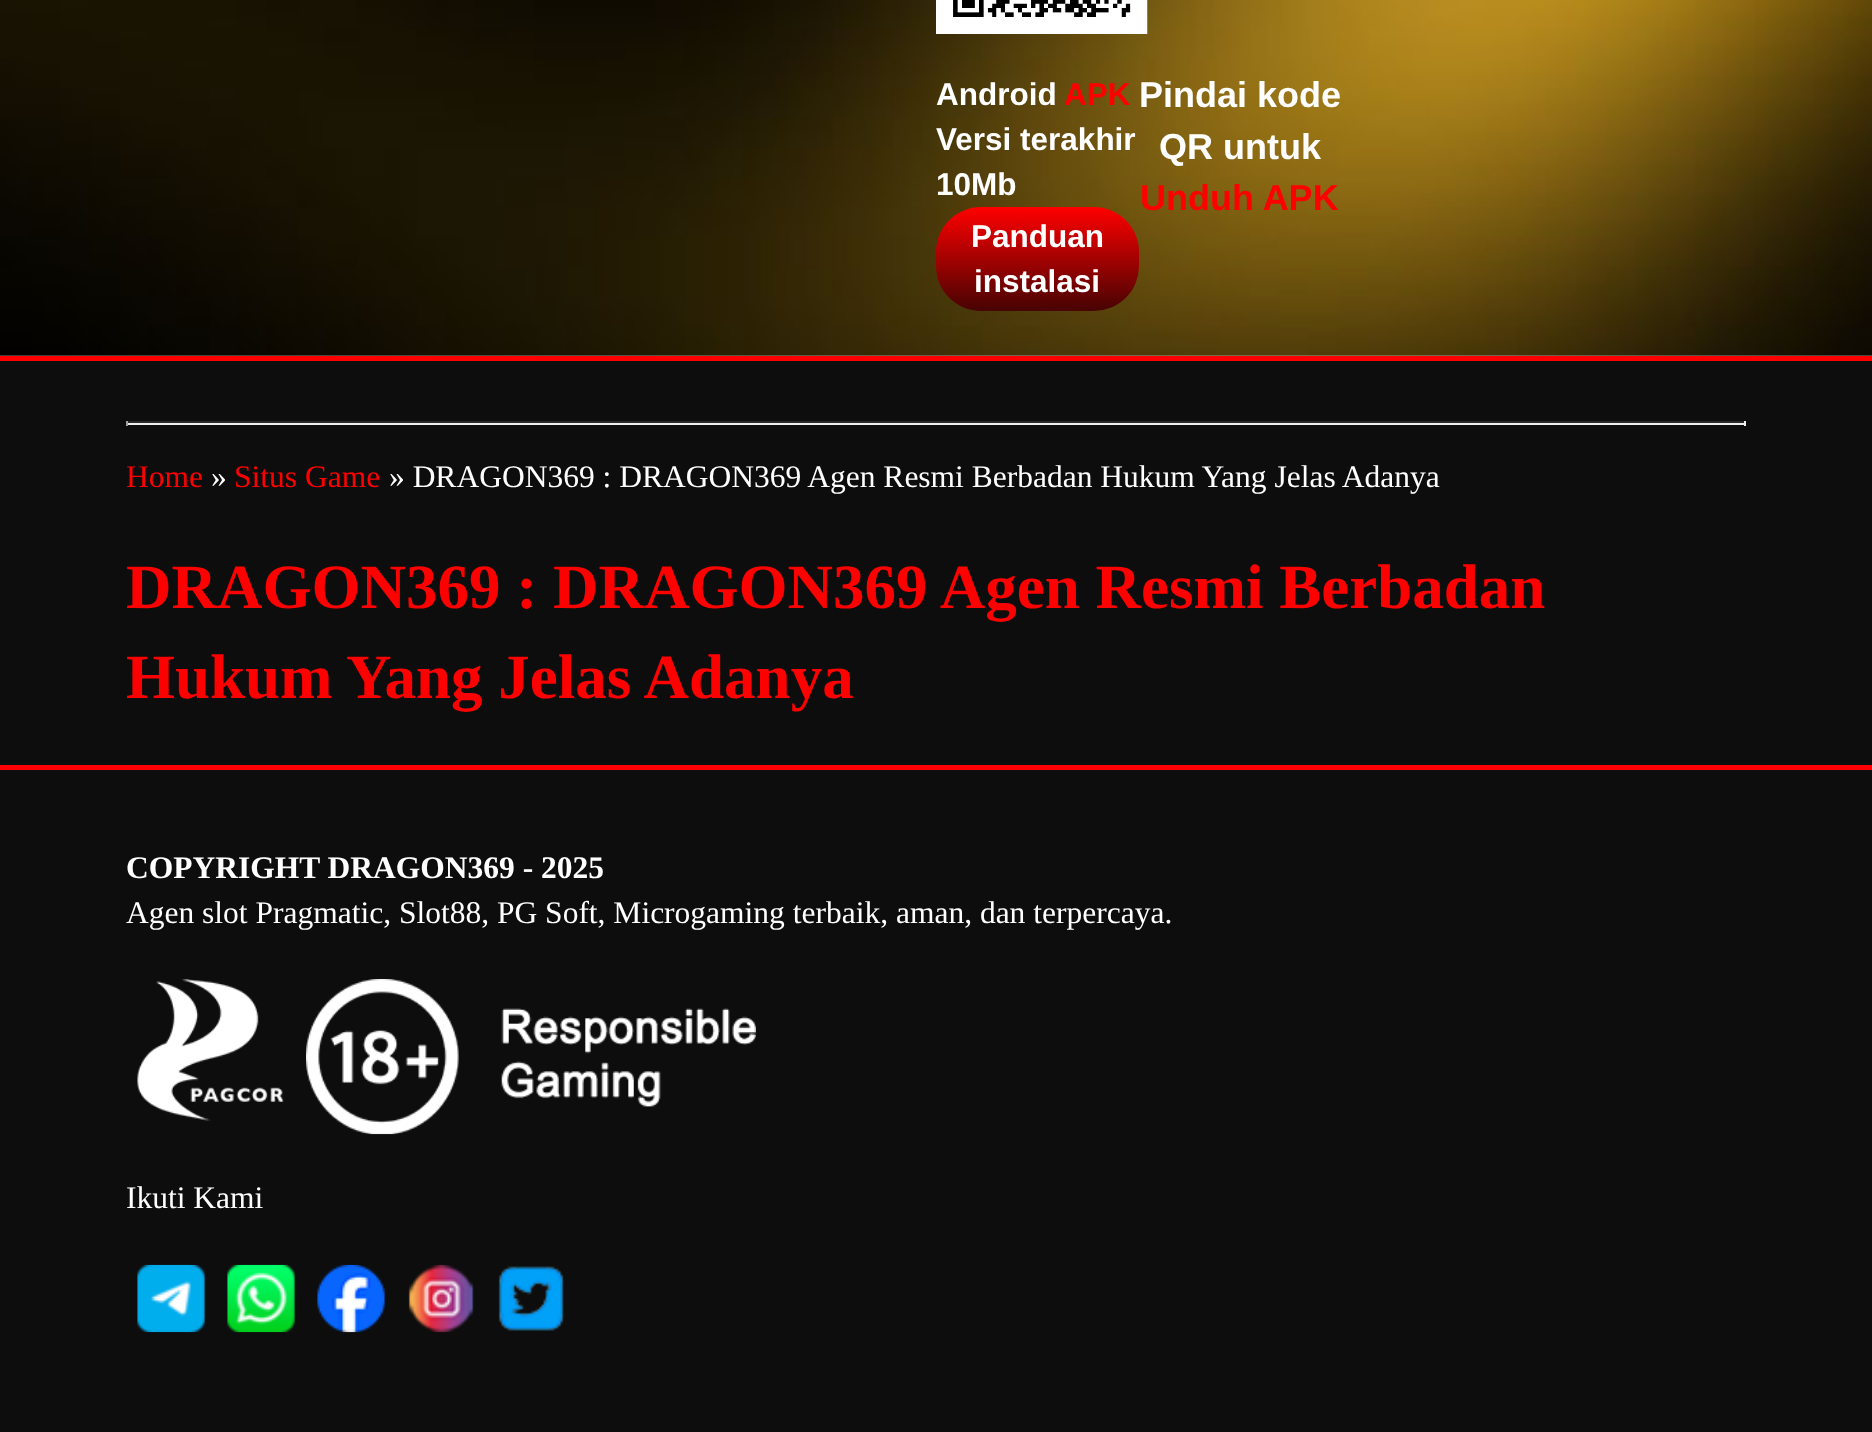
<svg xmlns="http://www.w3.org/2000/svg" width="1872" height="1432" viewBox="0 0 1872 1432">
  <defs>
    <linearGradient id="g1" gradientUnits="userSpaceOnUse" x1="1037" y1="207" x2="1037" y2="311"><stop offset="0" stop-color="rgb(255,0,0)"/><stop offset="1" stop-color="rgb(71,3,3)"/></linearGradient>
  </defs>
  <rect width="100%" height="100%" fill="rgb(255,255,255)"/>
  <image x="0" y="0" width="1872" height="356" href="pic1.png"/>
  <image x="936" y="0" width="212" height="34" href="pic2.png"/>
  <text x="936" y="105" font-family="Liberation Sans" font-size="31.5" font-weight="bold" fill="rgb(255,255,255)">Android</text>
  <text x="1064" y="105" font-family="Liberation Sans" font-size="31.5" font-weight="bold" fill="rgb(255,0,0)">APK</text>
  <g font-family="Liberation Sans" font-size="31.5" font-weight="bold" fill="rgb(255,255,255)">
    <text>
      <tspan x="936" y="150">Versi terakhir</tspan>
      <tspan x="936" y="195">10Mb</tspan>
    </text>
  </g>
  <rect x="936" y="207" width="203" height="104" rx="45" fill="url(#g1)"/>
  <g font-family="Liberation Sans" font-size="31.5" font-weight="bold" fill="rgb(255,255,255)">
    <text x="971" y="247">Panduan</text>
    <text x="974" y="292">instalasi</text>
  </g>
  <g font-family="Liberation Sans" font-size="36" font-weight="bold" fill="rgb(255,255,255)">
    <text x="1139" y="107">Pindai kode</text>
    <text x="1159" y="159">QR untuk</text>
  </g>
  <text x="1140" y="210" font-family="Liberation Sans" font-size="36" font-weight="bold" fill="rgb(255,0,0)">Unduh APK</text>
  <rect x="0" y="361" width="1872" height="1071" fill="rgb(13,13,13)"/>
  <rect x="0" y="356" width="1872" height="5" fill="rgb(255,0,0)"/>
  <rect x="126" y="421" width="1620" height="2" fill="rgb(41,39,41)"/>
  <rect x="1744" y="421" width="2" height="5" fill="rgb(238,238,238)"/>
  <rect x="126" y="423" width="1620" height="2" fill="rgb(238,238,238)"/>
  <rect x="126" y="421" width="2" height="5" fill="rgb(159,159,159)"/>
  <text x="126" y="487" font-family="Liberation Serif" font-size="31.5" fill="rgb(255,0,0)">Home</text>
  <text x="211" y="487" font-family="Liberation Serif" font-size="31.5" fill="rgb(255,255,255)">»</text>
  <text x="234" y="487" font-family="Liberation Serif" font-size="31.5" fill="rgb(255,0,0)">Situs Game</text>
  <text x="389" y="487" font-family="Liberation Serif" font-size="31.5" fill="rgb(255,255,255)">» DRAGON369 : DRAGON369 Agen Resmi Berbadan Hukum Yang Jelas Adanya</text>
  <g font-family="Liberation Serif" font-size="63" font-weight="bold" fill="rgb(255,0,0)">
    <text>
      <tspan x="126" y="608">DRAGON369 : DRAGON369 Agen Resmi Berbadan</tspan>
      <tspan x="126" y="698">Hukum Yang Jelas Adanya</tspan>
    </text>
  </g>
  <rect x="0" y="765" width="1872" height="5" fill="rgb(255,0,0)"/>
  <text x="126" y="878" font-family="Liberation Serif" font-size="31.5" font-weight="bold" fill="rgb(255,255,255)">COPYRIGHT DRAGON369 - 2025</text>
  <text x="126" y="923" font-family="Liberation Serif" font-size="31.5" fill="rgb(255,255,255)">Agen slot Pragmatic, Slot88, PG Soft, Microgaming terbaik, aman, dan terpercaya.</text>
  <image x="137" y="979" width="147" height="142" href="pic3.png"/>
  <image x="306" y="979" width="450" height="156" href="pic4.png"/>
  <text x="126" y="1208" font-family="Liberation Serif" font-size="31.5" fill="rgb(255,255,255)">Ikuti Kami</text>
  <image x="137" y="1264" width="68" height="69" href="pic5.png"/>
  <image x="227" y="1264" width="68" height="69" href="pic6.png"/>
  <image x="317" y="1264" width="68" height="69" href="pic7.png"/>
  <image x="408" y="1264" width="66" height="69" href="pic8.png"/>
  <image x="498" y="1266" width="66" height="65" href="pic9.png"/>
</svg>
